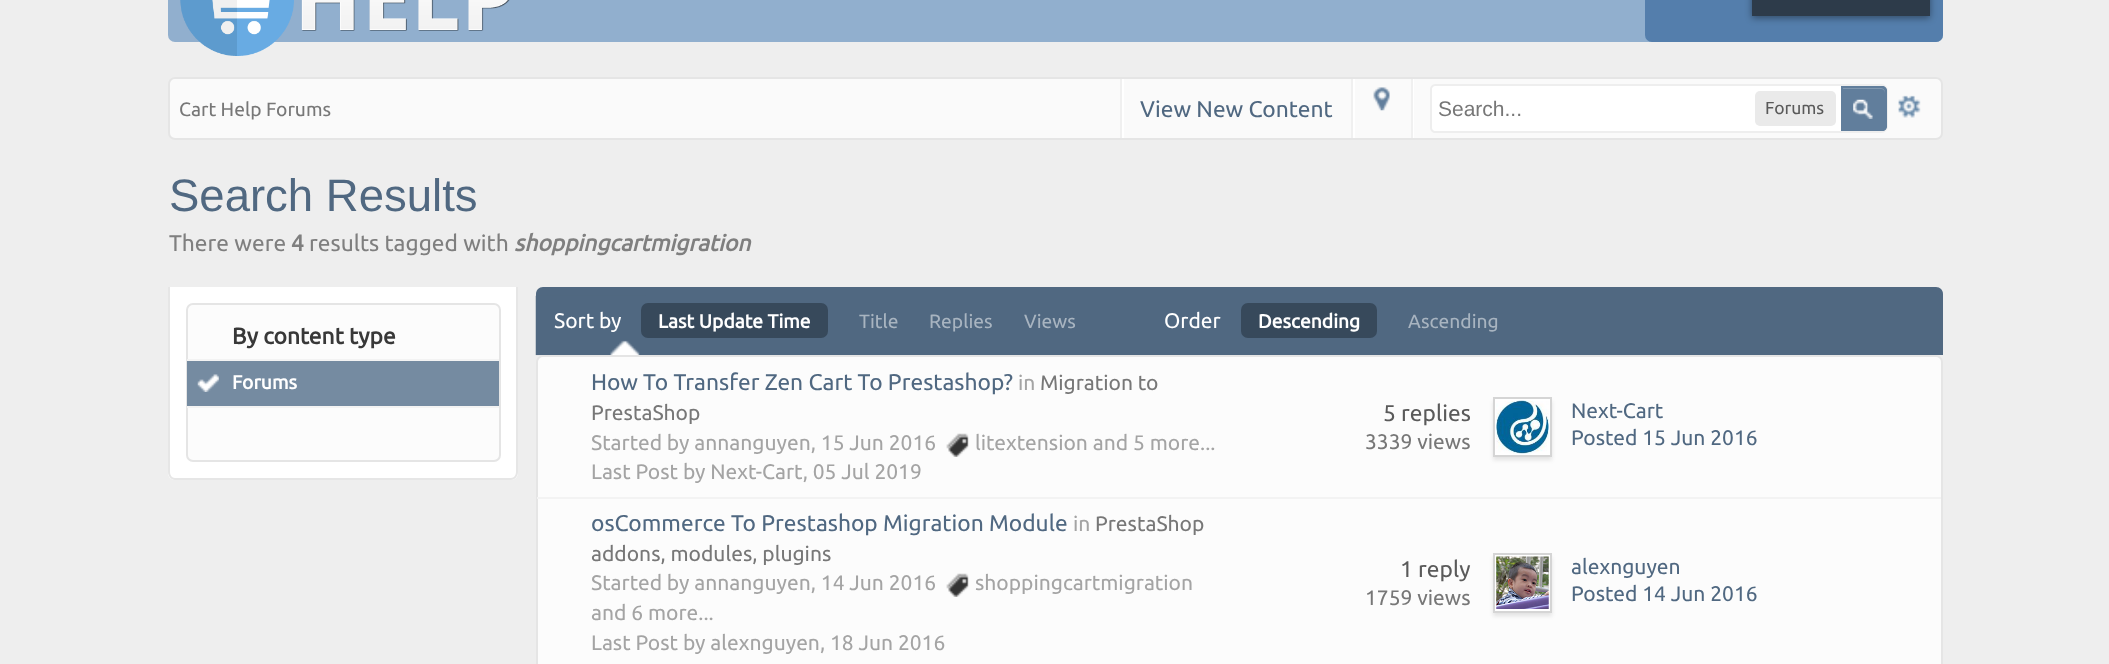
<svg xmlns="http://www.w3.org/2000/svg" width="2109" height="664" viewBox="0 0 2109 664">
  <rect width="100%" height="100%" fill="rgb(238,238,238)"/>
  <rect x="168" y="-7" width="1775" height="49" rx="7" fill="rgb(145,175,206)"/>
  <image x="180" y="0" width="330" height="56" href="pic1.png"/>
  <rect x="1645" y="-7" width="298" height="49" rx="7" fill="rgb(84,126,172)"/>
  <rect x="1752" y="-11" width="178" height="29" fill="rgba(0,0,0,0.4)" filter="blur(3.5px)"/>
  <rect x="1752" y="0" width="178" height="16" fill="rgb(45,59,74)"/>
  <rect x="169" y="78" width="1773" height="61" rx="6" fill="rgb(250,250,250)" stroke="rgb(229,229,229)" stroke-width="2"/>
  <text x="179" y="116" font-family="Ubuntu" font-size="19.25" fill="rgb(119,119,119)">Cart Help Forums</text>
  <rect x="1122" y="79" width="2" height="59" fill="rgb(255,255,255)"/>
  <rect x="1120" y="79" width="2" height="59" fill="rgb(240,240,240)"/>
  <text x="1140" y="117" font-family="Ubuntu" font-size="22.75" fill="rgb(80,104,129)">View New Content</text>
  <rect x="1353" y="79" width="2" height="59" fill="rgb(255,255,255)"/>
  <rect x="1351" y="79" width="2" height="59" fill="rgb(240,240,240)"/>
  <image x="1373" y="87" width="17" height="24" href="pic2.png"/>
  <rect x="1413" y="79" width="1" height="59" fill="rgb(255,255,255)"/>
  <rect x="1411" y="79" width="2" height="59" fill="rgb(240,240,240)"/>
  <path d="M1435 85H1881C1884.5 85 1887 87.5 1887 91V126C1887 129.5 1884.5 132 1881 132H1435C1433 132 1431 130 1431 128V89C1431 87 1433 85 1435 85Z" fill="rgb(255,255,255)" stroke="rgb(238,238,238)" stroke-width="2"/>
  <text x="1438" y="116" font-family="Liberation Sans" font-size="21" fill="rgb(119,119,119)">Search...</text>
  <rect x="1755" y="91" width="81" height="35" rx="5" fill="rgb(234,234,234)"/>
  <text x="1765" y="114" font-family="Ubuntu" font-size="17.5" fill="rgb(90,90,90)">Forums</text>
  <path d="M1841 86H1882C1885 86 1887 88 1887 91V126C1887 129 1885 131 1882 131H1841Z" fill="rgb(97,126,156)"/>
  <image x="1853" y="99" width="20" height="20" href="pic3.png"/>
  <path d="M1843 89H1881C1883 89 1885 91 1885 93V92C1885 90 1883 88 1881 88H1843Z" fill="rgb(129,152,176)"/>
  <path d="M1842 87H1882C1884 87 1886 89 1886 91V126C1886 128 1884 130 1882 130H1842Z" fill="none" stroke="rgb(97,126,156)" stroke-width="2"/>
  <image x="1898" y="95" width="23" height="23" href="pic4.png"/>
  <text x="169" y="211" font-family="Liberation Sans" font-size="45.5" fill="rgb(80,104,129)">Search Results</text>
  <text x="169" y="251" font-family="Ubuntu" font-size="22.75" fill="rgb(127,127,127)">There were</text>
  <text x="291" y="251" font-family="Ubuntu" font-size="22.75" font-weight="bold" fill="rgb(127,127,127)">4</text>
  <text x="309" y="251" font-family="Ubuntu" font-size="22.75" fill="rgb(127,127,127)">results tagged with</text>
  <text x="514" y="251" font-family="Ubuntu" font-size="22.75" font-weight="bold" font-style="italic" fill="rgb(127,127,127)">shoppingcartmigration</text>
  <path d="M168 287H518V473C518 477 515 480 511 480H175C171 480 168 477 168 473Z" fill="rgb(255,255,255)"/>
  <path d="M168 287H518V472C518 476 515 480 511 480H175C171 480 168 476 168 472ZM170 287H516V472C516 475 514 478 511 478H175C172 478 170 475 170 472Z" fill="rgb(230,230,230)" fill-rule="evenodd"/>
  <rect x="187" y="304" width="313" height="157" rx="6" fill="rgb(252,252,252)" stroke="rgb(229,229,229)" stroke-width="2"/>
  <text x="232" y="344" font-family="Ubuntu" font-size="22.75" font-weight="bold" fill="rgb(56,56,56)">By content type</text>
  <rect x="187" y="359" width="312" height="2" fill="rgb(243,243,243)"/>
  <rect x="187" y="406" width="312" height="2" fill="rgb(243,243,243)"/>
  <rect x="187" y="361" width="312" height="45" fill="rgb(117,139,161)"/>
  <image x="197" y="374" width="22" height="18" href="pic5.png"/>
  <text x="232" y="389" font-family="Ubuntu" font-size="19.25" font-weight="bold" fill="rgb(255,255,255)">Forums</text>
  <path d="M543 287H1936C1940 287 1943 290 1943 294V355H536V294C536 290 539 287 543 287Z" fill="rgb(80,104,129)"/>
  <image x="535" y="295" width="111" height="61" href="pic6.png"/>
  <text x="554" y="328" font-family="Ubuntu" font-size="21" fill="rgb(255,255,255)">Sort by</text>
  <rect x="641" y="303" width="187" height="35" rx="7" fill="rgb(55,73,91)"/>
  <text x="658" y="328" font-family="Ubuntu" font-size="19.25" font-weight="bold" fill="rgb(255,255,255)">Last Update Time</text>
  <g font-family="Ubuntu" font-size="19.25" fill="rgb(168,180,192)">
    <text x="859" y="328">Title</text>
    <text x="929" y="328">Replies</text>
    <text x="1024" y="328">Views</text>
  </g>
  <text x="1164" y="328" font-family="Ubuntu" font-size="21" fill="rgb(255,255,255)">Order</text>
  <rect x="1241" y="303" width="136" height="35" rx="7" fill="rgb(55,73,91)"/>
  <text x="1258" y="328" font-family="Ubuntu" font-size="19.25" font-weight="bold" fill="rgb(255,255,255)">Descending</text>
  <text x="1408" y="328" font-family="Ubuntu" font-size="19.25" fill="rgb(168,180,192)">Ascending</text>
  <rect x="537" y="356" width="1405" height="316" rx="6" fill="rgb(252,252,252)" stroke="rgb(229,229,229)" stroke-width="2"/>
  <text x="591" y="390" font-family="Ubuntu" font-size="22.75" fill="rgb(80,104,129)">How To Transfer Zen Cart To Prestashop?</text>
  <text x="1018" y="390" font-family="Ubuntu" font-size="21" fill="rgb(164,164,164)">in</text>
  <g font-family="Ubuntu" font-size="21" fill="rgb(119,119,119)">
    <text x="1040" y="390">Migration to</text>
    <text x="591" y="420">PrestaShop</text>
  </g>
  <text x="591" y="450" font-family="Ubuntu" font-size="21" fill="rgb(164,164,164)">Started by annanguyen, 15 Jun 2016</text>
  <image x="946" y="433" width="23" height="24" href="pic7.png"/>
  <g font-family="Ubuntu" font-size="21" fill="rgb(164,164,164)">
    <text x="975" y="450">litextension and 5 more...</text>
    <text x="591" y="479">Last Post by Next-Cart, 05 Jul 2019</text>
  </g>
  <text x="1383" y="421" font-family="Ubuntu" font-size="22.75" fill="rgb(90,90,90)">5 replies</text>
  <text x="1365" y="449" font-family="Ubuntu" font-size="21" fill="rgb(119,119,119)">3339 views</text>
  <rect x="537" y="497" width="1404" height="2" fill="rgb(243,243,243)"/>
  <rect x="1493" y="401" width="59" height="59" fill="rgba(0,0,0,0.1)" filter="blur(2px)"/>
  <rect x="1494" y="398" width="57" height="58" fill="rgb(255,255,255)" stroke="rgb(213,213,213)" stroke-width="2"/>
  <image x="1496" y="400" width="53" height="54" href="pic8.png"/>
  <g font-family="Ubuntu" font-size="21" fill="rgb(80,104,129)">
    <text>
      <tspan x="1571" y="418">Next-Cart</tspan>
      <tspan x="1571" y="445">Posted 15 Jun 2016</tspan>
    </text>
  </g>
  <text x="591" y="531" font-family="Ubuntu" font-size="22.75" fill="rgb(80,104,129)">osCommerce To Prestashop Migration Module</text>
  <text x="1073" y="531" font-family="Ubuntu" font-size="21" fill="rgb(164,164,164)">in</text>
  <g font-family="Ubuntu" font-size="21" fill="rgb(119,119,119)">
    <text x="1095" y="531">PrestaShop</text>
    <text x="591" y="561">addons, modules, plugins</text>
  </g>
  <text x="591" y="590" font-family="Ubuntu" font-size="21" fill="rgb(164,164,164)">Started by annanguyen, 14 Jun 2016</text>
  <image x="946" y="573" width="23" height="24" href="pic7.png"/>
  <g font-family="Ubuntu" font-size="21" fill="rgb(164,164,164)">
    <text x="975" y="590">shoppingcartmigration</text>
    <text>
      <tspan x="591" y="620">and 6 more...</tspan>
      <tspan x="591" y="650">Last Post by alexnguyen, 18 Jun 2016</tspan>
    </text>
  </g>
  <text x="1400" y="577" font-family="Ubuntu" font-size="22.75" fill="rgb(90,90,90)">1 reply</text>
  <text x="1365" y="605" font-family="Ubuntu" font-size="21" fill="rgb(119,119,119)">1759 views</text>
  <rect x="1493" y="557" width="59" height="59" fill="rgba(0,0,0,0.1)" filter="blur(2px)"/>
  <rect x="1494" y="554" width="57" height="58" fill="rgb(255,255,255)" stroke="rgb(213,213,213)" stroke-width="2"/>
  <image x="1496" y="556" width="53" height="53" href="pic9.png"/>
  <g font-family="Ubuntu" font-size="21" fill="rgb(80,104,129)">
    <text>
      <tspan x="1571" y="574">alexnguyen</tspan>
      <tspan x="1571" y="601">Posted 14 Jun 2016</tspan>
    </text>
  </g>
</svg>
